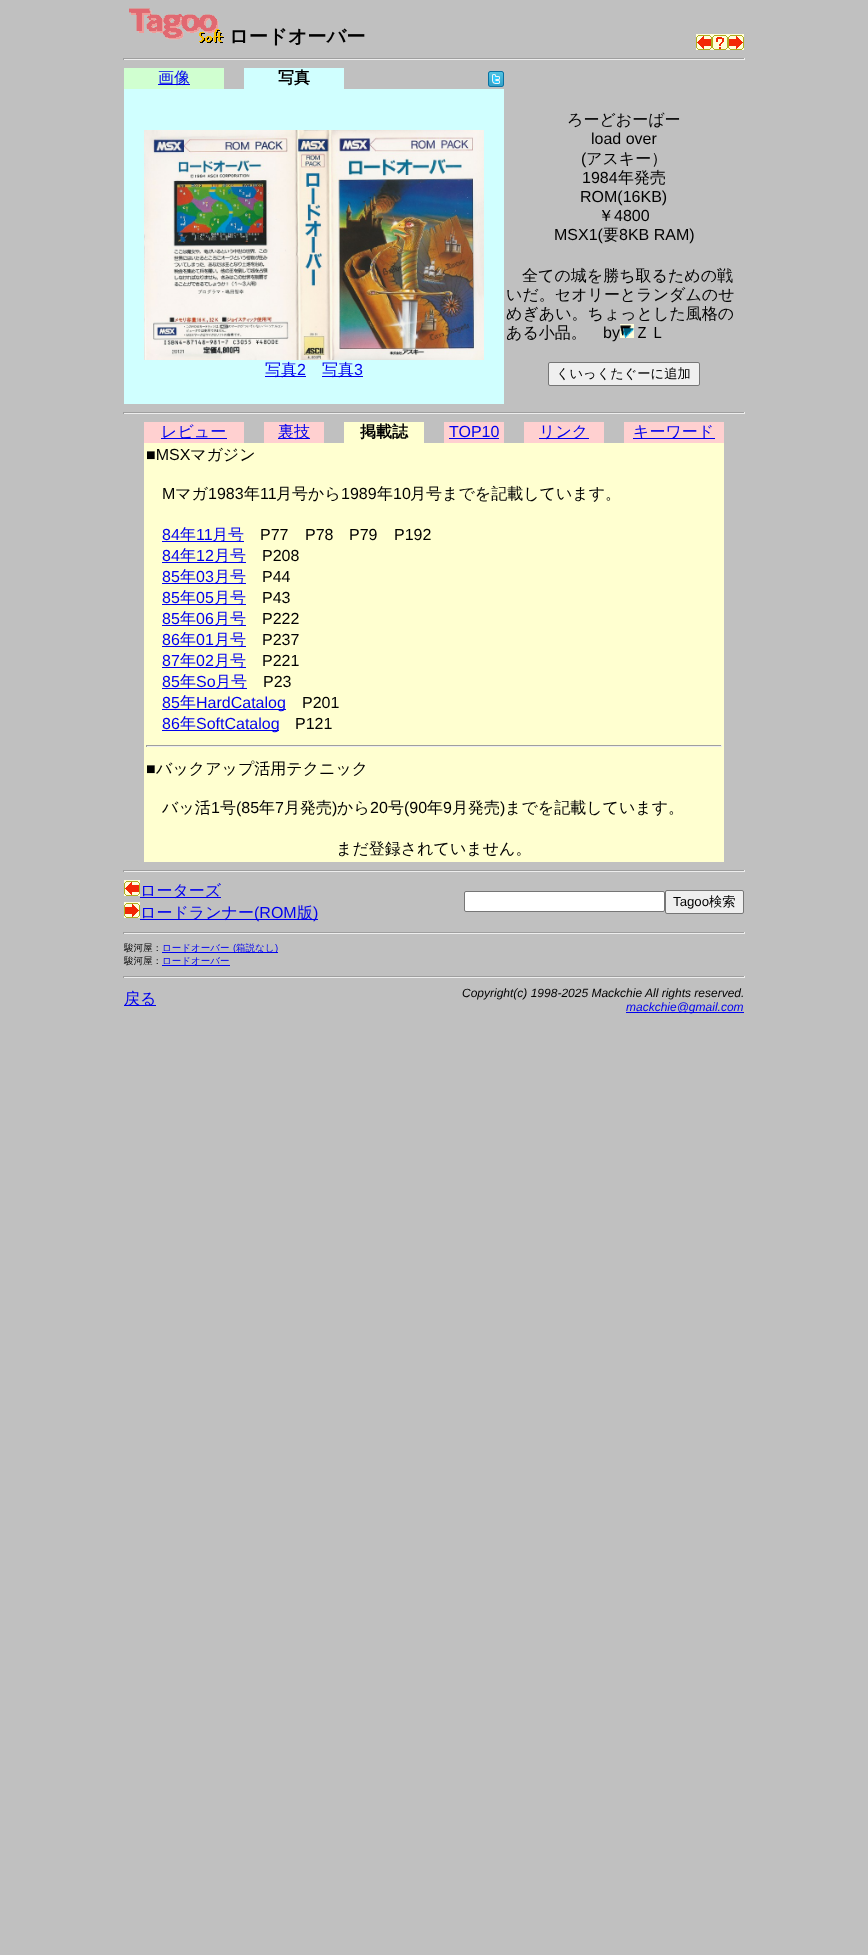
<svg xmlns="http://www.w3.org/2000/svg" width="868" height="1955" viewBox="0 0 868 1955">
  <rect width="100%" height="100%" fill="rgb(192,192,192)"/>
  <image x="129" y="8" width="95" height="35" href="pic1.png"/>
  <text x="229" y="43" font-family="WenQuanYi Zen Hei" font-size="19.25" font-weight="bold" fill="rgb(0,0,0)">ロードオーバー</text>
  <image x="696" y="34" width="16" height="16" href="pic2.png"/>
  <image x="712" y="34" width="16" height="16" href="pic3.png"/>
  <image x="728" y="34" width="16" height="16" href="pic4.png"/>
  <rect x="123" y="58" width="622" height="1" fill="rgb(159,159,159)"/>
  <rect x="744" y="58" width="1" height="2" fill="rgb(238,238,238)"/>
  <rect x="123" y="59" width="622" height="1" fill="rgb(238,238,238)"/>
  <rect x="123" y="58" width="1" height="2" fill="rgb(159,159,159)"/>
  <rect x="124" y="68" width="100" height="21" fill="rgb(208,255,208)"/>
  <rect x="158" y="84" width="32" height="1" fill="rgb(0,0,238)"/>
  <text x="158" y="83" font-family="WenQuanYi Zen Hei" font-size="16" font-weight="500" fill="rgb(0,0,238)">画像</text>
  <rect x="244" y="68" width="100" height="21" fill="rgb(208,255,255)"/>
  <text x="278" y="83" font-family="WenQuanYi Zen Hei" font-size="16" font-weight="bold" fill="rgb(0,0,0)">写真</text>
  <image x="488" y="71" width="16" height="16" href="pic5.png"/>
  <rect x="124" y="89" width="380" height="315" fill="rgb(208,255,255)"/>
  <image x="144" y="130" width="340" height="230" href="pic6.png"/>
  <rect x="265" y="376" width="41" height="1" fill="rgb(0,0,238)"/>
  <text x="265" y="375" font-family="WenQuanYi Zen Hei" font-size="16" font-weight="500" fill="rgb(0,0,238)">写真</text>
  <text x="297" y="375" font-family="Liberation Sans" font-size="16" fill="rgb(0,0,238)">2</text>
  <rect x="322" y="376" width="41" height="1" fill="rgb(0,0,238)"/>
  <text x="322" y="375" font-family="WenQuanYi Zen Hei" font-size="16" font-weight="500" fill="rgb(0,0,238)">写真</text>
  <text x="354" y="375" font-family="Liberation Sans" font-size="16" fill="rgb(0,0,238)">3</text>
  <text x="567" y="125" font-family="WenQuanYi Zen Hei" font-size="16" font-weight="500" fill="rgb(0,0,0)">ろーどおーばー</text>
  <g font-family="Liberation Sans" font-size="16" fill="rgb(0,0,0)">
    <text x="591" y="144">load over</text>
    <text x="581" y="164">(</text>
  </g>
  <text x="586" y="164" font-family="WenQuanYi Zen Hei" font-size="16" font-weight="500" fill="rgb(0,0,0)">アスキー）</text>
  <text x="582" y="183" font-family="Liberation Sans" font-size="16" fill="rgb(0,0,0)">1984</text>
  <text x="618" y="183" font-family="WenQuanYi Zen Hei" font-size="16" font-weight="500" fill="rgb(0,0,0)">年発売</text>
  <text x="580" y="202" font-family="Liberation Sans" font-size="16" fill="rgb(0,0,0)">ROM(16KB)</text>
  <text x="598" y="221" font-family="WenQuanYi Zen Hei" font-size="16" font-weight="500" fill="rgb(0,0,0)">￥</text>
  <g font-family="Liberation Sans" font-size="16" fill="rgb(0,0,0)">
    <text x="614" y="221">4800</text>
    <text x="554" y="240">MSX1(</text>
  </g>
  <text x="603" y="240" font-family="WenQuanYi Zen Hei" font-size="16" font-weight="500" fill="rgb(0,0,0)">要</text>
  <text x="619" y="240" font-family="Liberation Sans" font-size="16" fill="rgb(0,0,0)">8KB RAM)</text>
  <g font-family="WenQuanYi Zen Hei" font-size="16" font-weight="500" fill="rgb(0,0,0)">
    <text x="522" y="281">全ての城を勝ち取るための戦</text>
    <text>
      <tspan x="506" y="300">いだ。セオリーとランダムのせ</tspan>
      <tspan x="506" y="319">めぎあい。ちょっとした風格の</tspan>
      <tspan x="506" y="338">ある小品。</tspan>
    </text>
  </g>
  <text x="603" y="338" font-family="Liberation Sans" font-size="16" fill="rgb(0,0,0)">by</text>
  <image x="620" y="324" width="14" height="14" href="pic7.png"/>
  <text x="634" y="338" font-family="WenQuanYi Zen Hei" font-size="16" font-weight="500" fill="rgb(0,0,0)">ＺＬ</text>
  <rect x="548.5" y="362.5" width="151" height="23" rx="1.5" fill="rgb(239,239,239)" stroke="rgb(118,118,118)"/>
  <text x="556" y="378" font-family="WenQuanYi Zen Hei" font-size="13.25" font-weight="500" fill="rgb(0,0,0)">くいっくたぐーに追加</text>
  <rect x="123" y="412" width="622" height="1" fill="rgb(159,159,159)"/>
  <rect x="744" y="412" width="1" height="2" fill="rgb(238,238,238)"/>
  <rect x="123" y="413" width="622" height="1" fill="rgb(238,238,238)"/>
  <rect x="123" y="412" width="1" height="2" fill="rgb(159,159,159)"/>
  <rect x="144" y="422" width="100" height="21" fill="rgb(255,208,208)"/>
  <rect x="161" y="438" width="66" height="1" fill="rgb(0,0,238)"/>
  <text x="161" y="437" font-family="WenQuanYi Zen Hei" font-size="16" font-weight="500" fill="rgb(0,0,238)">レビュー</text>
  <rect x="264" y="422" width="60" height="21" fill="rgb(255,208,208)"/>
  <rect x="278" y="438" width="32" height="1" fill="rgb(0,0,238)"/>
  <text x="278" y="437" font-family="WenQuanYi Zen Hei" font-size="16" font-weight="500" fill="rgb(0,0,238)">裏技</text>
  <rect x="344" y="422" width="80" height="21" fill="rgb(255,255,208)"/>
  <text x="360" y="437" font-family="WenQuanYi Zen Hei" font-size="16" font-weight="bold" fill="rgb(0,0,0)">掲載誌</text>
  <rect x="444" y="422" width="60" height="21" fill="rgb(255,208,208)"/>
  <text x="449" y="437" font-family="Liberation Sans" font-size="16" fill="rgb(0,0,238)">TOP10</text>
  <rect x="449" y="438" width="50" height="1" fill="rgb(0,0,238)"/>
  <rect x="524" y="422" width="80" height="21" fill="rgb(255,208,208)"/>
  <rect x="539" y="438" width="50" height="1" fill="rgb(0,0,238)"/>
  <text x="539" y="437" font-family="WenQuanYi Zen Hei" font-size="16" font-weight="500" fill="rgb(0,0,238)">リンク</text>
  <rect x="624" y="422" width="100" height="21" fill="rgb(255,208,208)"/>
  <rect x="633" y="438" width="82" height="1" fill="rgb(0,0,238)"/>
  <text x="633" y="437" font-family="WenQuanYi Zen Hei" font-size="16" font-weight="500" fill="rgb(0,0,238)">キーワード</text>
  <rect x="144" y="443" width="580" height="419" fill="rgb(255,255,208)"/>
  <text x="146" y="460" font-family="Liberation Sans" font-size="16" fill="rgb(0,0,0)">■MSX</text>
  <text x="190" y="460" font-family="WenQuanYi Zen Hei" font-size="16" font-weight="500" fill="rgb(0,0,0)">マガジン</text>
  <text x="162" y="499" font-family="Liberation Sans" font-size="16" fill="rgb(0,0,0)">M</text>
  <text x="175" y="499" font-family="WenQuanYi Zen Hei" font-size="16" font-weight="500" fill="rgb(0,0,0)">マガ</text>
  <text x="208" y="499" font-family="Liberation Sans" font-size="16" fill="rgb(0,0,0)">1983</text>
  <text x="244" y="499" font-family="WenQuanYi Zen Hei" font-size="16" font-weight="500" fill="rgb(0,0,0)">年</text>
  <text x="260" y="499" font-family="Liberation Sans" font-size="16" fill="rgb(0,0,0)">11</text>
  <text x="276" y="499" font-family="WenQuanYi Zen Hei" font-size="16" font-weight="500" fill="rgb(0,0,0)">月号から</text>
  <text x="341" y="499" font-family="Liberation Sans" font-size="16" fill="rgb(0,0,0)">1989</text>
  <text x="377" y="499" font-family="WenQuanYi Zen Hei" font-size="16" font-weight="500" fill="rgb(0,0,0)">年</text>
  <text x="393" y="499" font-family="Liberation Sans" font-size="16" fill="rgb(0,0,0)">10</text>
  <text x="410" y="499" font-family="WenQuanYi Zen Hei" font-size="16" font-weight="500" fill="rgb(0,0,0)">月号までを記載しています。</text>
  <text x="162" y="540" font-family="Liberation Sans" font-size="16" fill="rgb(0,0,238)">84</text>
  <rect x="162" y="541" width="82" height="1" fill="rgb(0,0,238)"/>
  <text x="180" y="540" font-family="WenQuanYi Zen Hei" font-size="16" font-weight="500" fill="rgb(0,0,238)">年</text>
  <text x="196" y="540" font-family="Liberation Sans" font-size="16" fill="rgb(0,0,238)">11</text>
  <text x="212" y="540" font-family="WenQuanYi Zen Hei" font-size="16" font-weight="500" fill="rgb(0,0,238)">月号</text>
  <g font-family="Liberation Sans" font-size="16" fill="rgb(0,0,0)">
    <text x="260" y="540">P77</text>
    <text x="305" y="540">P78</text>
    <text x="349" y="540">P79</text>
    <text x="394" y="540">P192</text>
  </g>
  <text x="162" y="561" font-family="Liberation Sans" font-size="16" fill="rgb(0,0,238)">84</text>
  <rect x="162" y="562" width="84" height="1" fill="rgb(0,0,238)"/>
  <text x="180" y="561" font-family="WenQuanYi Zen Hei" font-size="16" font-weight="500" fill="rgb(0,0,238)">年</text>
  <text x="196" y="561" font-family="Liberation Sans" font-size="16" fill="rgb(0,0,238)">12</text>
  <text x="214" y="561" font-family="WenQuanYi Zen Hei" font-size="16" font-weight="500" fill="rgb(0,0,238)">月号</text>
  <text x="262" y="561" font-family="Liberation Sans" font-size="16" fill="rgb(0,0,0)">P208</text>
  <text x="162" y="582" font-family="Liberation Sans" font-size="16" fill="rgb(0,0,238)">85</text>
  <rect x="162" y="583" width="84" height="1" fill="rgb(0,0,238)"/>
  <text x="180" y="582" font-family="WenQuanYi Zen Hei" font-size="16" font-weight="500" fill="rgb(0,0,238)">年</text>
  <text x="196" y="582" font-family="Liberation Sans" font-size="16" fill="rgb(0,0,238)">03</text>
  <text x="214" y="582" font-family="WenQuanYi Zen Hei" font-size="16" font-weight="500" fill="rgb(0,0,238)">月号</text>
  <text x="262" y="582" font-family="Liberation Sans" font-size="16" fill="rgb(0,0,0)">P44</text>
  <text x="162" y="603" font-family="Liberation Sans" font-size="16" fill="rgb(0,0,238)">85</text>
  <rect x="162" y="604" width="84" height="1" fill="rgb(0,0,238)"/>
  <text x="180" y="603" font-family="WenQuanYi Zen Hei" font-size="16" font-weight="500" fill="rgb(0,0,238)">年</text>
  <text x="196" y="603" font-family="Liberation Sans" font-size="16" fill="rgb(0,0,238)">05</text>
  <text x="214" y="603" font-family="WenQuanYi Zen Hei" font-size="16" font-weight="500" fill="rgb(0,0,238)">月号</text>
  <text x="262" y="603" font-family="Liberation Sans" font-size="16" fill="rgb(0,0,0)">P43</text>
  <text x="162" y="624" font-family="Liberation Sans" font-size="16" fill="rgb(0,0,238)">85</text>
  <rect x="162" y="625" width="84" height="1" fill="rgb(0,0,238)"/>
  <text x="180" y="624" font-family="WenQuanYi Zen Hei" font-size="16" font-weight="500" fill="rgb(0,0,238)">年</text>
  <text x="196" y="624" font-family="Liberation Sans" font-size="16" fill="rgb(0,0,238)">06</text>
  <text x="214" y="624" font-family="WenQuanYi Zen Hei" font-size="16" font-weight="500" fill="rgb(0,0,238)">月号</text>
  <text x="262" y="624" font-family="Liberation Sans" font-size="16" fill="rgb(0,0,0)">P222</text>
  <text x="162" y="645" font-family="Liberation Sans" font-size="16" fill="rgb(0,0,238)">86</text>
  <rect x="162" y="646" width="84" height="1" fill="rgb(0,0,238)"/>
  <text x="180" y="645" font-family="WenQuanYi Zen Hei" font-size="16" font-weight="500" fill="rgb(0,0,238)">年</text>
  <text x="196" y="645" font-family="Liberation Sans" font-size="16" fill="rgb(0,0,238)">01</text>
  <text x="214" y="645" font-family="WenQuanYi Zen Hei" font-size="16" font-weight="500" fill="rgb(0,0,238)">月号</text>
  <text x="262" y="645" font-family="Liberation Sans" font-size="16" fill="rgb(0,0,0)">P237</text>
  <text x="162" y="666" font-family="Liberation Sans" font-size="16" fill="rgb(0,0,238)">87</text>
  <rect x="162" y="667" width="84" height="1" fill="rgb(0,0,238)"/>
  <text x="180" y="666" font-family="WenQuanYi Zen Hei" font-size="16" font-weight="500" fill="rgb(0,0,238)">年</text>
  <text x="196" y="666" font-family="Liberation Sans" font-size="16" fill="rgb(0,0,238)">02</text>
  <text x="214" y="666" font-family="WenQuanYi Zen Hei" font-size="16" font-weight="500" fill="rgb(0,0,238)">月号</text>
  <text x="262" y="666" font-family="Liberation Sans" font-size="16" fill="rgb(0,0,0)">P221</text>
  <text x="162" y="687" font-family="Liberation Sans" font-size="16" fill="rgb(0,0,238)">85</text>
  <rect x="162" y="688" width="85" height="1" fill="rgb(0,0,238)"/>
  <text x="180" y="687" font-family="WenQuanYi Zen Hei" font-size="16" font-weight="500" fill="rgb(0,0,238)">年</text>
  <text x="196" y="687" font-family="Liberation Sans" font-size="16" fill="rgb(0,0,238)">So</text>
  <text x="215" y="687" font-family="WenQuanYi Zen Hei" font-size="16" font-weight="500" fill="rgb(0,0,238)">月号</text>
  <text x="263" y="687" font-family="Liberation Sans" font-size="16" fill="rgb(0,0,0)">P23</text>
  <text x="162" y="708" font-family="Liberation Sans" font-size="16" fill="rgb(0,0,238)">85</text>
  <rect x="162" y="709" width="124" height="1" fill="rgb(0,0,238)"/>
  <text x="180" y="708" font-family="WenQuanYi Zen Hei" font-size="16" font-weight="500" fill="rgb(0,0,238)">年</text>
  <text x="196" y="708" font-family="Liberation Sans" font-size="16" fill="rgb(0,0,238)">HardCatalog</text>
  <text x="302" y="708" font-family="Liberation Sans" font-size="16" fill="rgb(0,0,0)">P201</text>
  <text x="162" y="729" font-family="Liberation Sans" font-size="16" fill="rgb(0,0,238)">86</text>
  <rect x="162" y="730" width="117" height="1" fill="rgb(0,0,238)"/>
  <text x="180" y="729" font-family="WenQuanYi Zen Hei" font-size="16" font-weight="500" fill="rgb(0,0,238)">年</text>
  <text x="196" y="729" font-family="Liberation Sans" font-size="16" fill="rgb(0,0,238)">SoftCatalog</text>
  <text x="295" y="729" font-family="Liberation Sans" font-size="16" fill="rgb(0,0,0)">P121</text>
  <rect x="146" y="745" width="576" height="1" fill="rgb(159,159,159)"/>
  <rect x="721" y="745" width="1" height="2" fill="rgb(238,238,238)"/>
  <rect x="146" y="746" width="576" height="1" fill="rgb(238,238,238)"/>
  <rect x="146" y="745" width="1" height="2" fill="rgb(159,159,159)"/>
  <text x="146" y="774" font-family="Liberation Sans" font-size="16" fill="rgb(0,0,0)">■</text>
  <g font-family="WenQuanYi Zen Hei" font-size="16" font-weight="500" fill="rgb(0,0,0)">
    <text x="156" y="774">バックアップ活用テクニック</text>
    <text x="162" y="813">バッ活</text>
  </g>
  <text x="211" y="813" font-family="Liberation Sans" font-size="16" fill="rgb(0,0,0)">1</text>
  <text x="220" y="813" font-family="WenQuanYi Zen Hei" font-size="16" font-weight="500" fill="rgb(0,0,0)">号</text>
  <text x="236" y="813" font-family="Liberation Sans" font-size="16" fill="rgb(0,0,0)">(85</text>
  <text x="259" y="813" font-family="WenQuanYi Zen Hei" font-size="16" font-weight="500" fill="rgb(0,0,0)">年</text>
  <text x="275" y="813" font-family="Liberation Sans" font-size="16" fill="rgb(0,0,0)">7</text>
  <text x="284" y="813" font-family="WenQuanYi Zen Hei" font-size="16" font-weight="500" fill="rgb(0,0,0)">月発売</text>
  <text x="332" y="813" font-family="Liberation Sans" font-size="16" fill="rgb(0,0,0)">)</text>
  <text x="337" y="813" font-family="WenQuanYi Zen Hei" font-size="16" font-weight="500" fill="rgb(0,0,0)">から</text>
  <text x="370" y="813" font-family="Liberation Sans" font-size="16" fill="rgb(0,0,0)">20</text>
  <text x="388" y="813" font-family="WenQuanYi Zen Hei" font-size="16" font-weight="500" fill="rgb(0,0,0)">号</text>
  <text x="404" y="813" font-family="Liberation Sans" font-size="16" fill="rgb(0,0,0)">(90</text>
  <text x="427" y="813" font-family="WenQuanYi Zen Hei" font-size="16" font-weight="500" fill="rgb(0,0,0)">年</text>
  <text x="443" y="813" font-family="Liberation Sans" font-size="16" fill="rgb(0,0,0)">9</text>
  <text x="452" y="813" font-family="WenQuanYi Zen Hei" font-size="16" font-weight="500" fill="rgb(0,0,0)">月発売</text>
  <text x="500" y="813" font-family="Liberation Sans" font-size="16" fill="rgb(0,0,0)">)</text>
  <g font-family="WenQuanYi Zen Hei" font-size="16" font-weight="500" fill="rgb(0,0,0)">
    <text x="505" y="813">までを記載しています。</text>
    <text x="336" y="854">まだ登録されていません。</text>
  </g>
  <rect x="123" y="870" width="622" height="1" fill="rgb(159,159,159)"/>
  <rect x="744" y="870" width="1" height="2" fill="rgb(238,238,238)"/>
  <rect x="123" y="871" width="622" height="1" fill="rgb(238,238,238)"/>
  <rect x="123" y="870" width="1" height="2" fill="rgb(159,159,159)"/>
  <image x="124" y="880" width="16" height="16" href="pic2.png"/>
  <rect x="140" y="897" width="81" height="1" fill="rgb(0,0,238)"/>
  <text x="140" y="896" font-family="WenQuanYi Zen Hei" font-size="16" font-weight="500" fill="rgb(0,0,238)">ローターズ</text>
  <image x="124" y="902" width="16" height="16" href="pic4.png"/>
  <rect x="140" y="919" width="178" height="1" fill="rgb(0,0,238)"/>
  <text x="140" y="918" font-family="WenQuanYi Zen Hei" font-size="16" font-weight="500" fill="rgb(0,0,238)">ロードランナー</text>
  <text x="254" y="918" font-family="Liberation Sans" font-size="16" fill="rgb(0,0,238)">(ROM</text>
  <text x="297" y="918" font-family="WenQuanYi Zen Hei" font-size="16" font-weight="500" fill="rgb(0,0,238)">版</text>
  <text x="313" y="918" font-family="Liberation Sans" font-size="16" fill="rgb(0,0,238)">)</text>
  <rect x="464.5" y="891.5" width="200" height="20" rx="1.5" fill="rgb(255,255,255)" stroke="rgb(118,118,118)"/>
  <rect x="665.5" y="890.5" width="78" height="23" rx="1.5" fill="rgb(239,239,239)" stroke="rgb(118,118,118)"/>
  <text x="673" y="906" font-family="Liberation Sans" font-size="13.25" fill="rgb(0,0,0)">Tagoo</text>
  <text x="709" y="906" font-family="WenQuanYi Zen Hei" font-size="13.25" font-weight="500" fill="rgb(0,0,0)">検索</text>
  <rect x="123" y="932" width="622" height="1" fill="rgb(159,159,159)"/>
  <rect x="744" y="932" width="1" height="2" fill="rgb(238,238,238)"/>
  <rect x="123" y="933" width="622" height="1" fill="rgb(238,238,238)"/>
  <rect x="123" y="932" width="1" height="2" fill="rgb(159,159,159)"/>
  <text x="124" y="951" font-family="WenQuanYi Zen Hei" font-size="9.5" font-weight="500" fill="rgb(0,0,0)">駿河屋：</text>
  <rect x="162" y="952" width="116" height="1" fill="rgb(0,0,238)"/>
  <text x="162" y="951" font-family="WenQuanYi Zen Hei" font-size="9.5" font-weight="500" fill="rgb(0,0,238)">ロードオーバー</text>
  <text x="233" y="951" font-family="Liberation Sans" font-size="9.5" fill="rgb(0,0,238)">(</text>
  <text x="236" y="951" font-family="WenQuanYi Zen Hei" font-size="9.5" font-weight="500" fill="rgb(0,0,238)">箱説なし</text>
  <text x="275" y="951" font-family="Liberation Sans" font-size="9.5" fill="rgb(0,0,238)">)</text>
  <text x="124" y="964" font-family="WenQuanYi Zen Hei" font-size="9.5" font-weight="500" fill="rgb(0,0,0)">駿河屋：</text>
  <rect x="162" y="965" width="68" height="1" fill="rgb(0,0,238)"/>
  <text x="162" y="964" font-family="WenQuanYi Zen Hei" font-size="9.5" font-weight="500" fill="rgb(0,0,238)">ロードオーバー</text>
  <rect x="123" y="976" width="622" height="1" fill="rgb(159,159,159)"/>
  <rect x="744" y="976" width="1" height="2" fill="rgb(238,238,238)"/>
  <rect x="123" y="977" width="622" height="1" fill="rgb(238,238,238)"/>
  <rect x="123" y="976" width="1" height="2" fill="rgb(159,159,159)"/>
  <rect x="124" y="1005" width="32" height="1" fill="rgb(0,0,238)"/>
  <text x="124" y="1004" font-family="WenQuanYi Zen Hei" font-size="16" font-weight="500" fill="rgb(0,0,238)">戻る</text>
  <text x="462" y="997" font-family="Liberation Sans" font-size="12" font-style="italic" fill="rgb(0,0,0)">Copyright(c) 1998-2025 Mackchie All rights reserved.</text>
  <rect x="626" y="1012" width="118" height="1" fill="rgb(0,0,238)"/>
  <text x="626" y="1011" font-family="Liberation Sans" font-size="12" font-style="italic" fill="rgb(0,0,238)">mackchie@gmail.com</text>
</svg>
